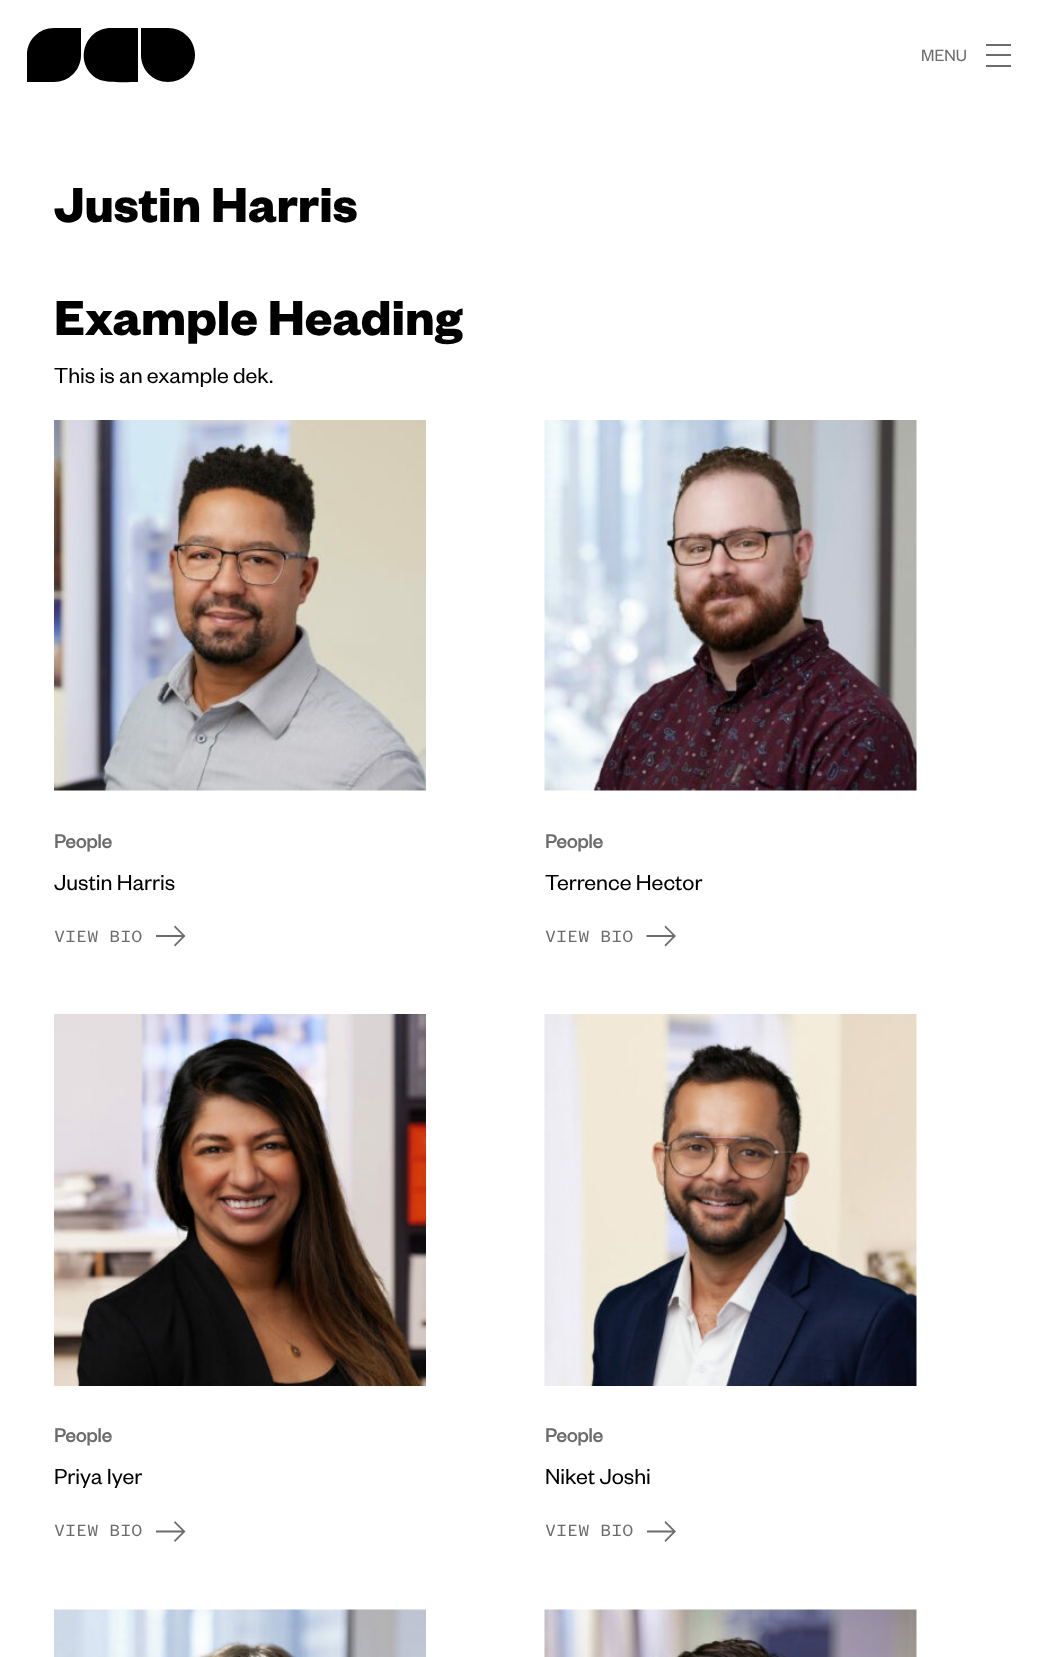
<svg xmlns="http://www.w3.org/2000/svg" width="1052" height="1657" viewBox="0 0 1052 1657">
  <defs>
    <clipPath id="clip1"><rect x="647" y="1517" width="30" height="30"/></clipPath>
  </defs>
  <rect width="100%" height="100%" fill="rgb(255,255,255)"/>
  <path d="M54 28C39 28 27 40 27 55V82H54C69 82 81 70 81 55V28ZM111 28C82 28 73 68 100 80C109 83 128 82 138 82V28ZM168 28H141V55C141 70 153 82 168 82C183 82 195 70 195 55C195 40 183 28 168 28Z" fill="rgb(0,0,0)"/>
  <rect x="986" y="44" width="25" height="2" fill="rgb(108,108,108)"/>
  <text x="921" y="61" font-family="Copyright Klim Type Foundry" font-size="18" fill="rgb(108,108,108)">MENU</text>
  <rect x="986" y="54" width="25" height="2" fill="rgb(108,108,108)"/>
  <rect x="986" y="65" width="25" height="2" fill="rgb(108,108,108)"/>
  <g font-family="Copyright Klim Type Foundry" font-size="54" font-weight="bold" fill="rgb(0,0,0)">
    <text x="54" y="222">Justin Harris</text>
    <text x="54" y="335">Example Heading</text>
  </g>
  <text x="54" y="383" font-family="Copyright Klim Type Foundry" font-size="24" fill="rgb(0,0,0)">This is an example dek.</text>
  <image x="54" y="420" width="372" height="371" href="pic1.png"/>
  <text x="54" y="848" font-family="'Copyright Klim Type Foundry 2'" font-size="21" font-weight="bold" fill="rgb(108,108,108)">People</text>
  <text x="54" y="890" font-family="Copyright Klim Type Foundry" font-size="24" fill="rgb(0,0,0)">Justin Harris</text>
  <text x="54" y="942" font-family="'Copyright Klim Type Foundry 2'" font-size="18" fill="rgb(108,108,108)">VIEW BIO</text>
  <path d="M185 935.5L185.5 936L175 946.5L174 945L182 937H156V935H182L174 927L175 925.5Z" fill="rgb(108,108,108)" fill-rule="evenodd"/>
  <image x="544" y="420" width="373" height="371" href="pic2.png"/>
  <text x="545" y="848" font-family="'Copyright Klim Type Foundry 2'" font-size="21" font-weight="bold" fill="rgb(108,108,108)">People</text>
  <text x="545" y="890" font-family="Copyright Klim Type Foundry" font-size="24" fill="rgb(0,0,0)">Terrence Hector</text>
  <text x="545" y="942" font-family="'Copyright Klim Type Foundry 2'" font-size="18" fill="rgb(108,108,108)">VIEW BIO</text>
  <path d="M675.5 935.5L676 936L665.5 946.5L664.5 945L672.5 937H646.5V935H672.5L664.5 927L665.5 925.5Z" fill="rgb(108,108,108)" fill-rule="evenodd"/>
  <image x="54" y="1014" width="372" height="372" href="pic3.png"/>
  <text x="54" y="1442" font-family="'Copyright Klim Type Foundry 2'" font-size="21" font-weight="bold" fill="rgb(108,108,108)">People</text>
  <text x="54" y="1484" font-family="Copyright Klim Type Foundry" font-size="24" fill="rgb(0,0,0)">Priya Iyer</text>
  <text x="54" y="1536" font-family="'Copyright Klim Type Foundry 2'" font-size="18" fill="rgb(108,108,108)">VIEW BIO</text>
  <path d="M185 1531L185.5 1531.5L175 1542L174 1540.5L182 1532.5H156V1530.5H182L174 1522.5L175 1521Z" fill="rgb(108,108,108)" fill-rule="evenodd"/>
  <image x="544" y="1014" width="373" height="372" href="pic4.png"/>
  <text x="545" y="1442" font-family="'Copyright Klim Type Foundry 2'" font-size="21" font-weight="bold" fill="rgb(108,108,108)">People</text>
  <text x="545" y="1484" font-family="Copyright Klim Type Foundry" font-size="24" fill="rgb(0,0,0)">Niket Joshi</text>
  <text x="545" y="1536" font-family="'Copyright Klim Type Foundry 2'" font-size="18" fill="rgb(108,108,108)">VIEW BIO</text>
  <g clip-path="url(#clip1)">
    <path d="M675.5 1531L676 1531.5L665.5 1542L664.5 1540.5L672.5 1532.5H646.5V1530.5H672.5L664.5 1522.5L665.5 1521Z" fill="rgb(108,108,108)" fill-rule="evenodd"/>
  </g>
  <image x="54" y="1609" width="372" height="48" href="pic5.png"/>
  <image x="544" y="1609" width="373" height="48" href="pic6.png"/>
</svg>
